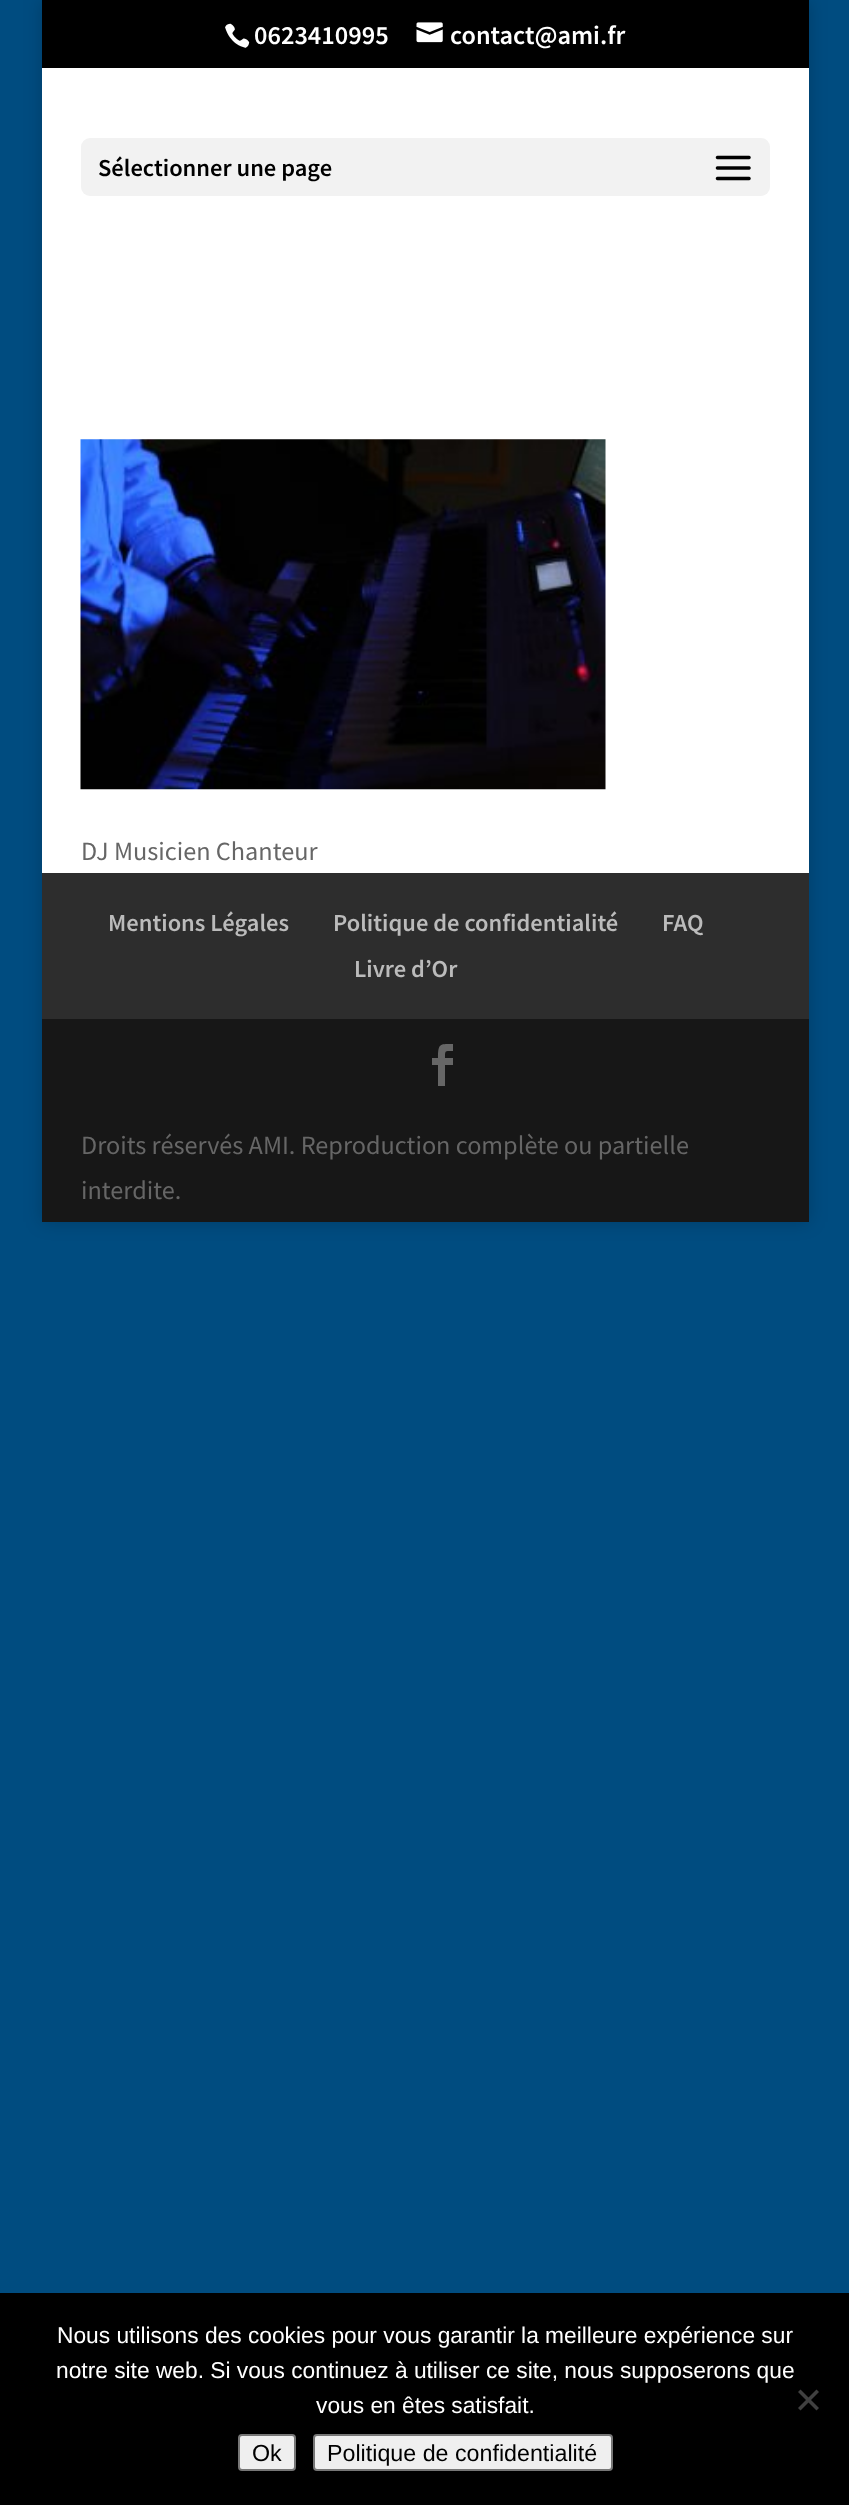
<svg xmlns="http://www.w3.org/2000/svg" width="849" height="2505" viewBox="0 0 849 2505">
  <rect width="100%" height="100%" fill="rgb(0,76,128)"/>
  <rect x="42" y="0" width="767" height="1222" fill="rgba(0,0,0,0.2)" filter="blur(9px)"/>
  <rect x="42" y="0" width="767" height="68" fill="rgb(0,0,0)"/>
  <image x="225" y="23" width="25" height="25" href="pic1.png"/>
  <text x="254" y="44" font-family="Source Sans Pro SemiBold" font-size="26.25" font-weight="600" fill="rgb(255,255,255)">0623410995</text>
  <image x="416" y="22" width="27" height="21" href="pic2.png"/>
  <text x="450" y="44" font-family="Source Sans Pro SemiBold" font-size="26.25" font-weight="600" fill="rgb(255,255,255)">contact@ami.fr</text>
  <rect x="42" y="68" width="767" height="805" fill="rgb(255,255,255)"/>
  <rect x="81" y="138" width="689" height="58" rx="9" fill="rgb(242,242,242)"/>
  <text x="98" y="176" font-family="Source Sans Pro SemiBold" font-size="24.5" font-weight="600" fill="rgb(0,0,0)">Sélectionner une page</text>
  <image x="715" y="155" width="36" height="26" href="pic3.png"/>
  <image x="80" y="439" width="526" height="351" href="pic4.png"/>
  <text x="81" y="860" font-family="Source Sans Pro" font-size="26.25" fill="rgb(102,102,102)">DJ Musicien Chanteur</text>
  <rect x="42" y="873" width="767" height="146" fill="rgb(45,45,45)"/>
  <g font-family="Source Sans Pro SemiBold" font-size="24.5" font-weight="600" fill="rgb(187,187,187)">
    <text x="108" y="931">Mentions Légales</text>
    <text x="333" y="931">Politique de confidentialité</text>
    <text x="662" y="931">FAQ</text>
    <text x="354" y="977">Livre d’Or</text>
  </g>
  <rect x="42" y="1019" width="767" height="203" fill="rgb(23,23,23)"/>
  <path d="M438 1086H445V1065H453V1058H445C445 1050 445 1051 453 1051V1044C440 1044 438 1043 438 1058H432V1065H438Z" fill="rgb(102,102,102)"/>
  <g font-family="Source Sans Pro" font-size="26.25" fill="rgb(102,102,102)">
    <text>
      <tspan x="81" y="1154">Droits réservés AMI. Reproduction complète ou partielle</tspan>
      <tspan x="81" y="1199">interdite.</tspan>
    </text>
  </g>
  <rect x="0" y="2293" width="849" height="212" fill="rgb(0,0,0)"/>
  <g font-family="Liberation Sans" font-size="22.75" fill="rgb(255,255,255)">
    <text x="57" y="2343">Nous utilisons des cookies pour vous garantir la meilleure expérience sur</text>
    <text x="56" y="2378">notre site web. Si vous continuez à utiliser ce site, nous supposerons que</text>
    <text x="316" y="2413">vous en êtes satisfait.</text>
  </g>
  <path d="M816.5 2389.5L819 2392L800.5 2410.5L798 2408Z" fill="rgb(64,64,64)"/>
  <path d="M798 2392L800.5 2389.5L819 2408L816.5 2410.5Z" fill="rgb(64,64,64)"/>
  <rect x="239" y="2435" width="56" height="35" rx="3" fill="rgb(239,239,239)" stroke="rgb(118,118,118)" stroke-width="2"/>
  <text x="252" y="2461" font-family="Liberation Sans" font-size="23.25" fill="rgb(0,0,0)">Ok</text>
  <rect x="314" y="2435" width="298" height="35" rx="3" fill="rgb(239,239,239)" stroke="rgb(118,118,118)" stroke-width="2"/>
  <text x="327" y="2461" font-family="Liberation Sans" font-size="23.25" fill="rgb(0,0,0)">Politique de confidentialité</text>
</svg>
